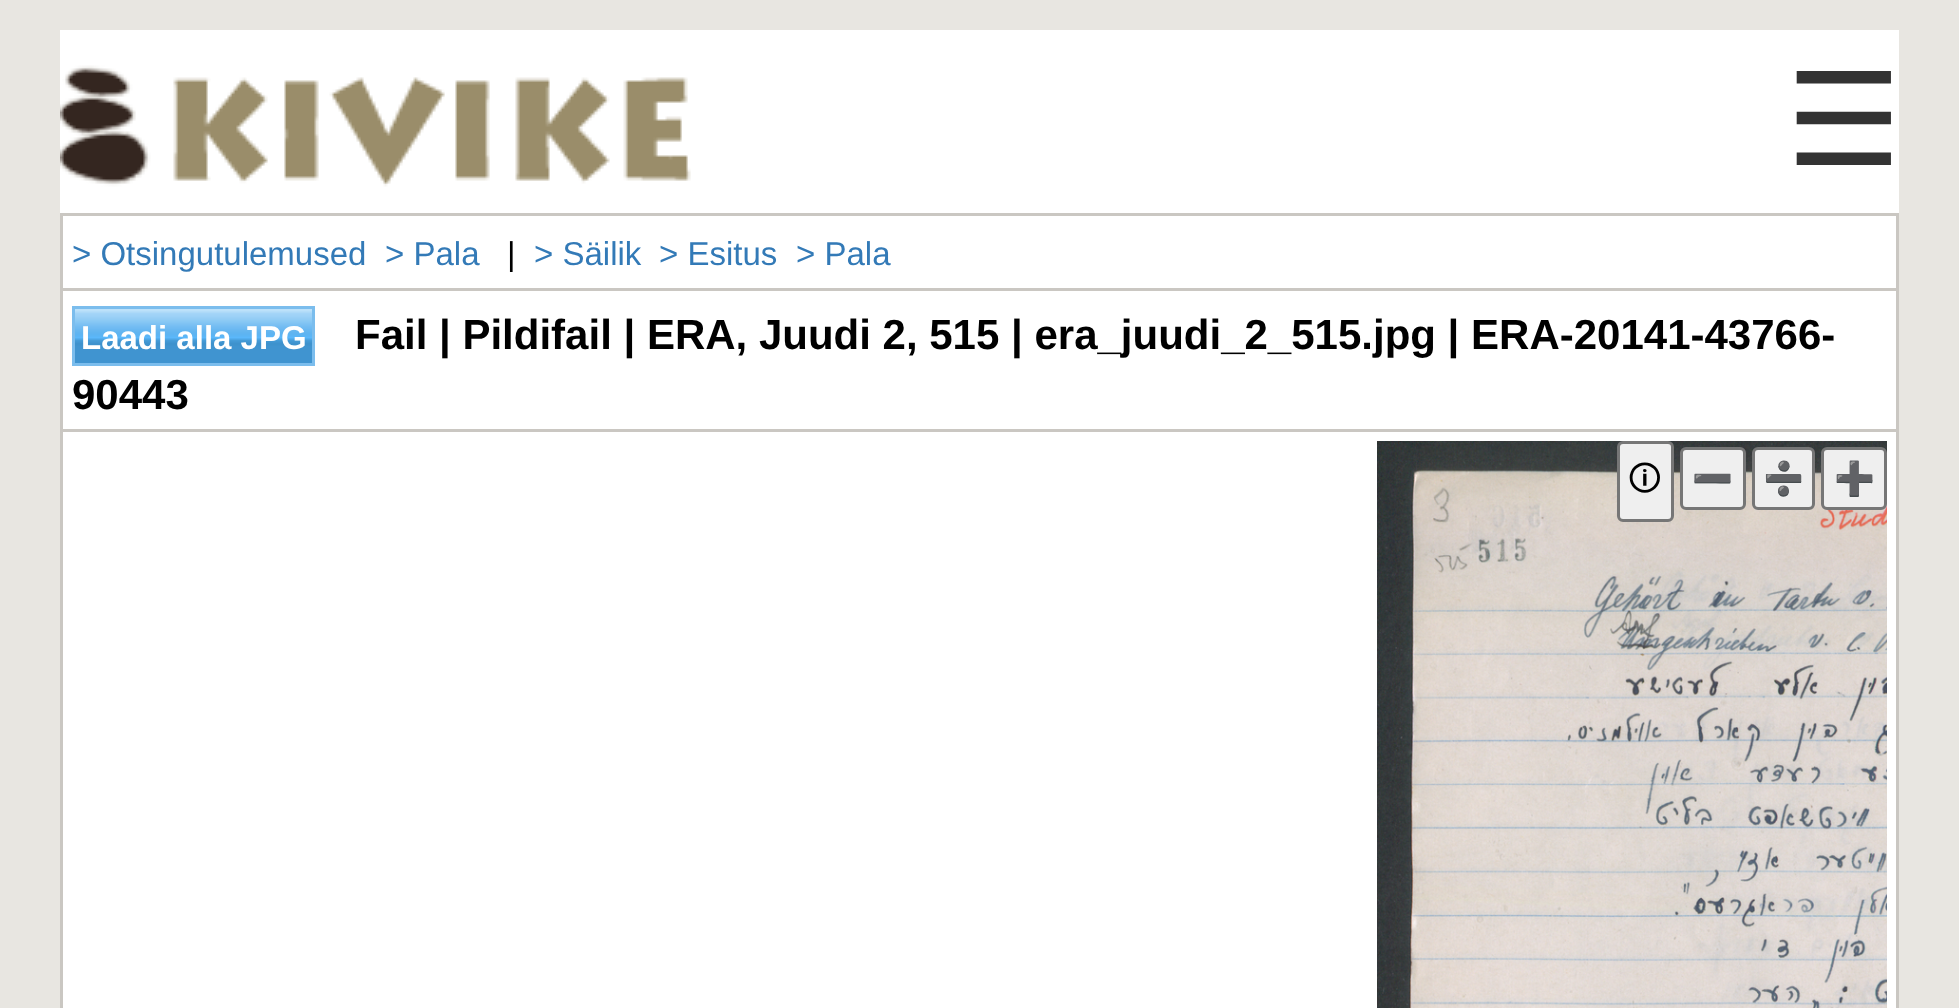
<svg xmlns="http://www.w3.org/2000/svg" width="1959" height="1008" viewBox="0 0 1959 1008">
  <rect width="100%" height="100%" fill="rgb(232,230,225)"/>
  <rect x="60" y="30" width="1839" height="978" fill="rgb(255,255,255)"/>
  <image x="60" y="65" width="631" height="122" href="pic1.png"/>
  <text x="1786" y="165" font-family="DejaVu Sans" font-size="129" fill="rgb(51,51,51)">☰</text>
  <rect x="60" y="213" width="1839" height="3" fill="rgb(202,199,194)"/>
  <rect x="1896" y="213" width="3" height="795" fill="rgb(202,199,194)"/>
  <rect x="60" y="213" width="3" height="795" fill="rgb(202,199,194)"/>
  <g font-family="Liberation Sans" font-size="33" fill="rgb(51,122,183)">
    <text x="72" y="265">&gt; Otsingutulemused</text>
    <text x="385" y="265">&gt; Pala</text>
  </g>
  <text x="507" y="265" font-family="Liberation Sans" font-size="33" fill="rgb(0,0,0)">|</text>
  <g font-family="Liberation Sans" font-size="33" fill="rgb(51,122,183)">
    <text x="534" y="265">&gt; Säilik</text>
    <text x="659" y="265">&gt; Esitus</text>
    <text x="796" y="265">&gt; Pala</text>
  </g>
  <rect x="60" y="288" width="1839" height="3" fill="rgb(202,199,194)"/>
  <image x="75" y="309" width="237" height="54" href="pic2.png"/>
  <rect x="73.5" y="307.5" width="240" height="57" fill="none" stroke="rgb(123,189,237)" stroke-width="3"/>
  <text x="81" y="349" font-family="Liberation Sans" font-size="33" font-weight="bold" fill="rgb(255,255,255)">Laadi alla JPG</text>
  <g font-family="Liberation Sans" font-size="42" font-weight="bold" fill="rgb(0,0,0)">
    <text x="355" y="349">Fail | Pildifail | ERA, Juudi 2, 515 | era_juudi_2_515.jpg | ERA-20141-43766-</text>
    <text x="72" y="409">90443</text>
  </g>
  <rect x="60" y="429" width="1839" height="3" fill="rgb(202,199,194)"/>
  <image x="1377" y="441" width="510" height="567" href="pic3.png"/>
  <rect x="1618.5" y="442.5" width="54" height="78" rx="4.5" fill="rgb(239,239,239)" stroke="rgb(118,118,118)" stroke-width="3"/>
  <text x="1628" y="490" font-family="'Noto Sans Symbols 2'" font-size="33" fill="rgb(0,0,0)">🛈</text>
  <rect x="1681.5" y="448.5" width="63" height="60" rx="4.5" fill="rgb(239,239,239)" stroke="rgb(118,118,118)" stroke-width="3"/>
  <text x="1692" y="490" font-family="Noto Color Emoji" font-size="33" fill="rgb(0,0,0)">➖</text>
  <rect x="1753.5" y="448.5" width="60" height="60" rx="4.5" fill="rgb(239,239,239)" stroke="rgb(118,118,118)" stroke-width="3"/>
  <text x="1763" y="490" font-family="Noto Color Emoji" font-size="33" fill="rgb(0,0,0)">➗</text>
  <rect x="1822.5" y="448.5" width="63" height="60" rx="4.5" fill="rgb(239,239,239)" stroke="rgb(118,118,118)" stroke-width="3"/>
  <text x="1834" y="490" font-family="Noto Color Emoji" font-size="33" fill="rgb(0,0,0)">➕</text>
</svg>
